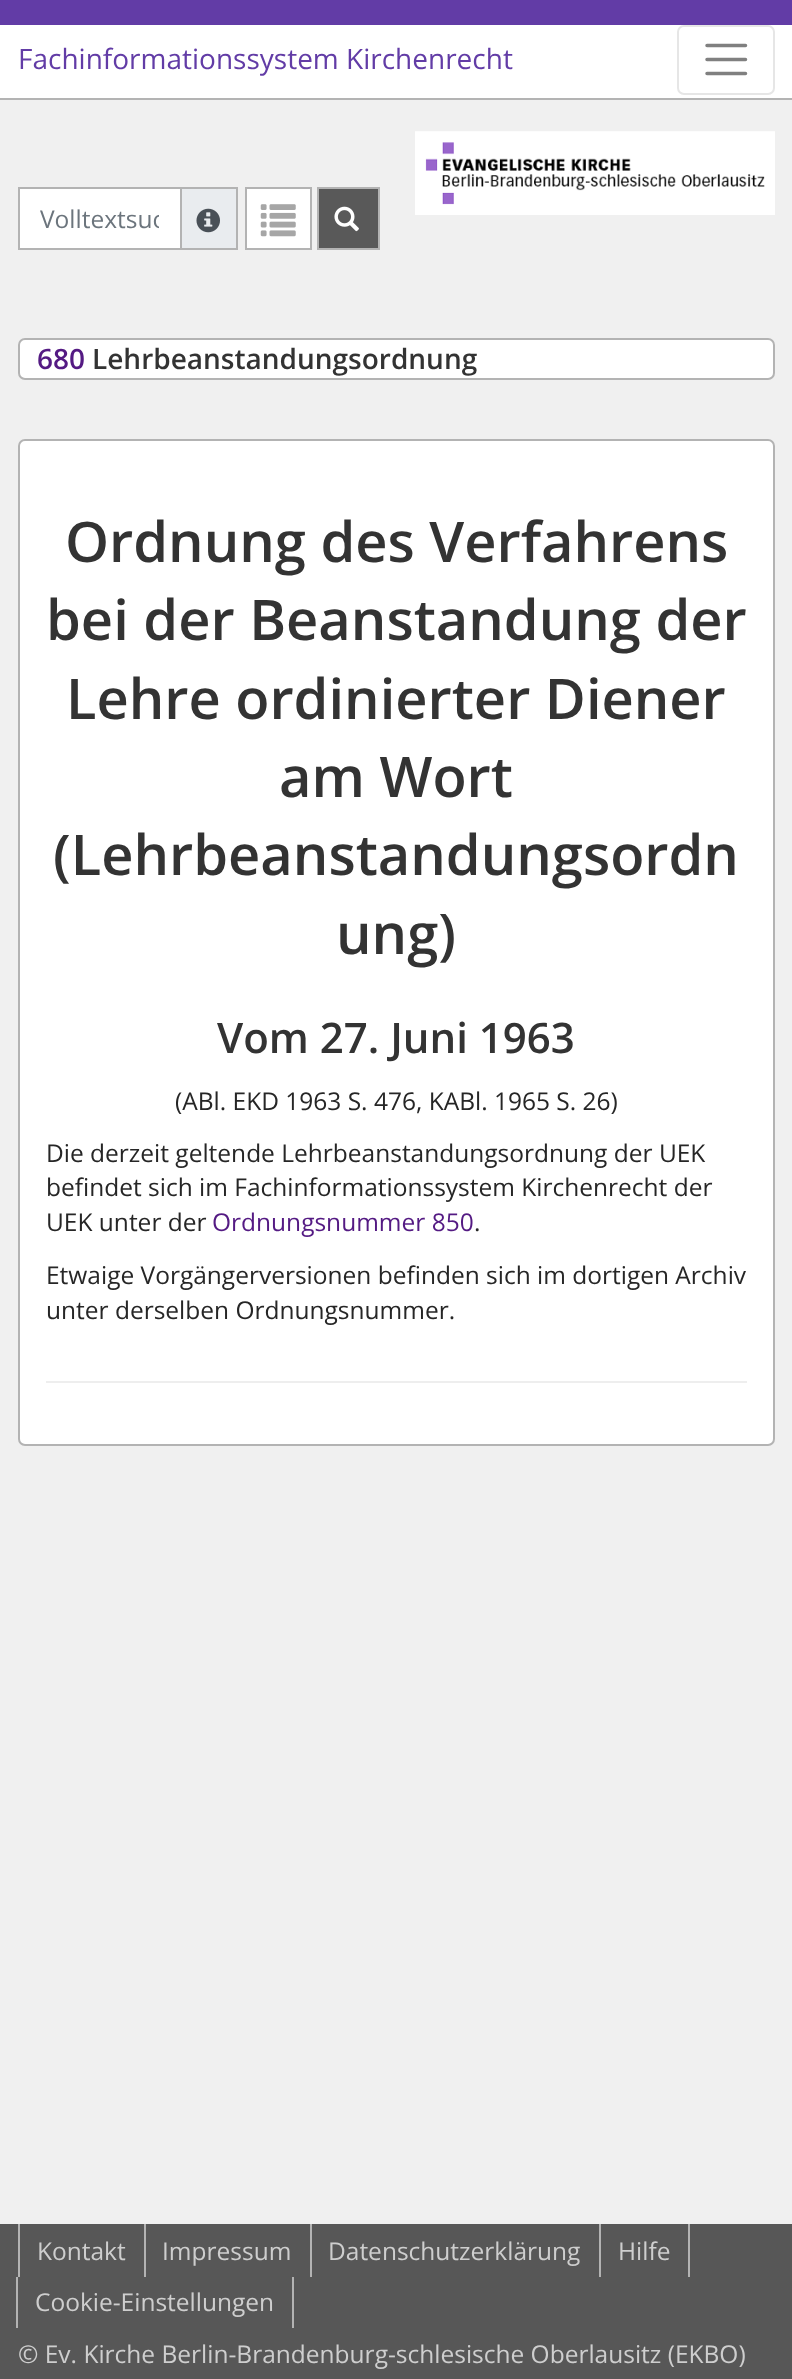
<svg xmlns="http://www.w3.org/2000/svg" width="792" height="2379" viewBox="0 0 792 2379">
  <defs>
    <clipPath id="clip1"><rect x="40" y="203" width="119" height="33"/></clipPath>
  </defs>
  <rect width="100%" height="100%" fill="rgb(240,240,240)"/>
  <rect x="0" y="0" width="792" height="25" fill="rgb(98,60,166)"/>
  <rect x="0" y="25" width="792" height="73" fill="rgb(255,255,255)"/>
  <rect x="0" y="98" width="792" height="2" fill="rgb(179,179,179)"/>
  <text x="18" y="69" font-family="Open Sans" font-size="28" fill="rgb(98,60,166)">Fachinformationssystem Kirchenrecht</text>
  <rect x="678" y="26" width="96" height="68" rx="6" fill="none" stroke="rgb(230,230,230)" stroke-width="2"/>
  <path d="M707 45.5H745.5M707 59.5H745.5M707 73.5H745.5" fill="none" stroke="rgb(128,128,128)" stroke-width="3.5" stroke-linecap="round"/>
  <image x="415" y="131" width="360" height="84" href="pic1.png"/>
  <rect x="181" y="188" width="56" height="61" fill="rgb(233,236,239)" stroke="rgb(179,179,179)" stroke-width="2"/>
  <rect x="19" y="188" width="162" height="61" fill="rgb(255,255,255)" stroke="rgb(179,179,179)" stroke-width="2"/>
  <g clip-path="url(#clip1)">
    <text x="40" y="228" font-family="Open Sans" font-size="24.5" fill="rgb(108,117,125)">Volltextsuc</text>
  </g>
  <image x="196" y="208" width="24" height="25" href="pic2.png"/>
  <rect x="246" y="188" width="65" height="61" fill="rgb(255,255,255)" stroke="rgb(179,179,179)" stroke-width="2"/>
  <image x="260" y="204" width="36" height="33" href="pic3.png"/>
  <rect x="318" y="188" width="61" height="61" fill="rgb(89,89,89)" stroke="rgb(179,179,179)" stroke-width="2"/>
  <image x="334" y="206" width="25" height="26" href="pic4.png"/>
  <rect x="19" y="339" width="755" height="40" rx="6" fill="rgb(255,255,255)" stroke="rgb(179,179,179)" stroke-width="2"/>
  <text x="37" y="369" font-family="Open Sans" font-size="28" font-weight="600" fill="rgb(84,26,131)">680</text>
  <text x="92" y="369" font-family="Open Sans" font-size="28" font-weight="600" fill="rgb(51,51,51)">Lehrbeanstandungsordnung</text>
  <rect x="19" y="440" width="755" height="1005" rx="6" fill="rgb(255,255,255)" stroke="rgb(179,179,179)" stroke-width="2"/>
  <g font-family="Open Sans" font-size="56" font-weight="600" fill="rgb(51,51,51)">
    <text x="65" y="562">Ordnung des Verfahrens</text>
    <text x="46" y="640">bei der Beanstandung der</text>
    <text x="66" y="719">Lehre ordinierter Diener</text>
    <text x="279" y="797">am Wort</text>
    <text x="53" y="875">(Lehrbeanstandungsordn</text>
    <text x="336" y="954">ung)</text>
  </g>
  <text x="217" y="1053" font-family="Open Sans" font-size="42" font-weight="600" fill="rgb(51,51,51)">Vom 27. Juni 1963</text>
  <g font-family="Open Sans" font-size="24.5" fill="rgb(38,38,38)">
    <text x="175" y="1110">(ABl. EKD 1963 S. 476, KABl. 1965 S. 26)</text>
    <text>
      <tspan x="46" y="1162">Die derzeit geltende Lehrbeanstandungsordnung der UEK</tspan>
      <tspan x="46" y="1196">befindet sich im Fachinformationssystem Kirchenrecht der</tspan>
      <tspan x="46" y="1231">UEK unter der</tspan>
    </text>
  </g>
  <text x="212" y="1231" font-family="Open Sans" font-size="24.5" fill="rgb(84,26,131)">Ordnungsnummer 850</text>
  <g font-family="Open Sans" font-size="24.5" fill="rgb(38,38,38)">
    <text x="474" y="1231">.</text>
    <text>
      <tspan x="46" y="1284">Etwaige Vorgängerversionen befinden sich im dortigen Archiv</tspan>
      <tspan x="46" y="1319">unter derselben Ordnungsnummer.</tspan>
    </text>
  </g>
  <rect x="46" y="1381" width="701" height="2" fill="rgb(238,238,238)"/>
  <rect x="0" y="2224" width="792" height="155" fill="rgb(87,87,87)"/>
  <rect x="18" y="2224" width="2" height="53" fill="rgb(179,179,179)"/>
  <rect x="144" y="2224" width="2" height="53" fill="rgb(179,179,179)"/>
  <text x="37" y="2260" font-family="Open Sans" font-size="24.5" fill="rgb(206,206,206)">Kontakt</text>
  <rect x="310" y="2224" width="2" height="53" fill="rgb(179,179,179)"/>
  <text x="162" y="2260" font-family="Open Sans" font-size="24.5" fill="rgb(206,206,206)">Impressum</text>
  <rect x="599" y="2224" width="2" height="53" fill="rgb(179,179,179)"/>
  <text x="328" y="2260" font-family="Open Sans" font-size="24.5" fill="rgb(206,206,206)">Datenschutzerklärung</text>
  <rect x="688" y="2224" width="2" height="53" fill="rgb(179,179,179)"/>
  <text x="618" y="2260" font-family="Open Sans" font-size="24.5" fill="rgb(206,206,206)">Hilfe</text>
  <rect x="16" y="2277" width="2" height="51" fill="rgb(179,179,179)"/>
  <rect x="292" y="2277" width="2" height="51" fill="rgb(179,179,179)"/>
  <g font-family="Open Sans" font-size="24.5" fill="rgb(206,206,206)">
    <text x="35" y="2311">Cookie-Einstellungen</text>
    <text x="18" y="2363">© Ev. Kirche Berlin-Brandenburg-schlesische Oberlausitz (EKBO)</text>
  </g>
</svg>
